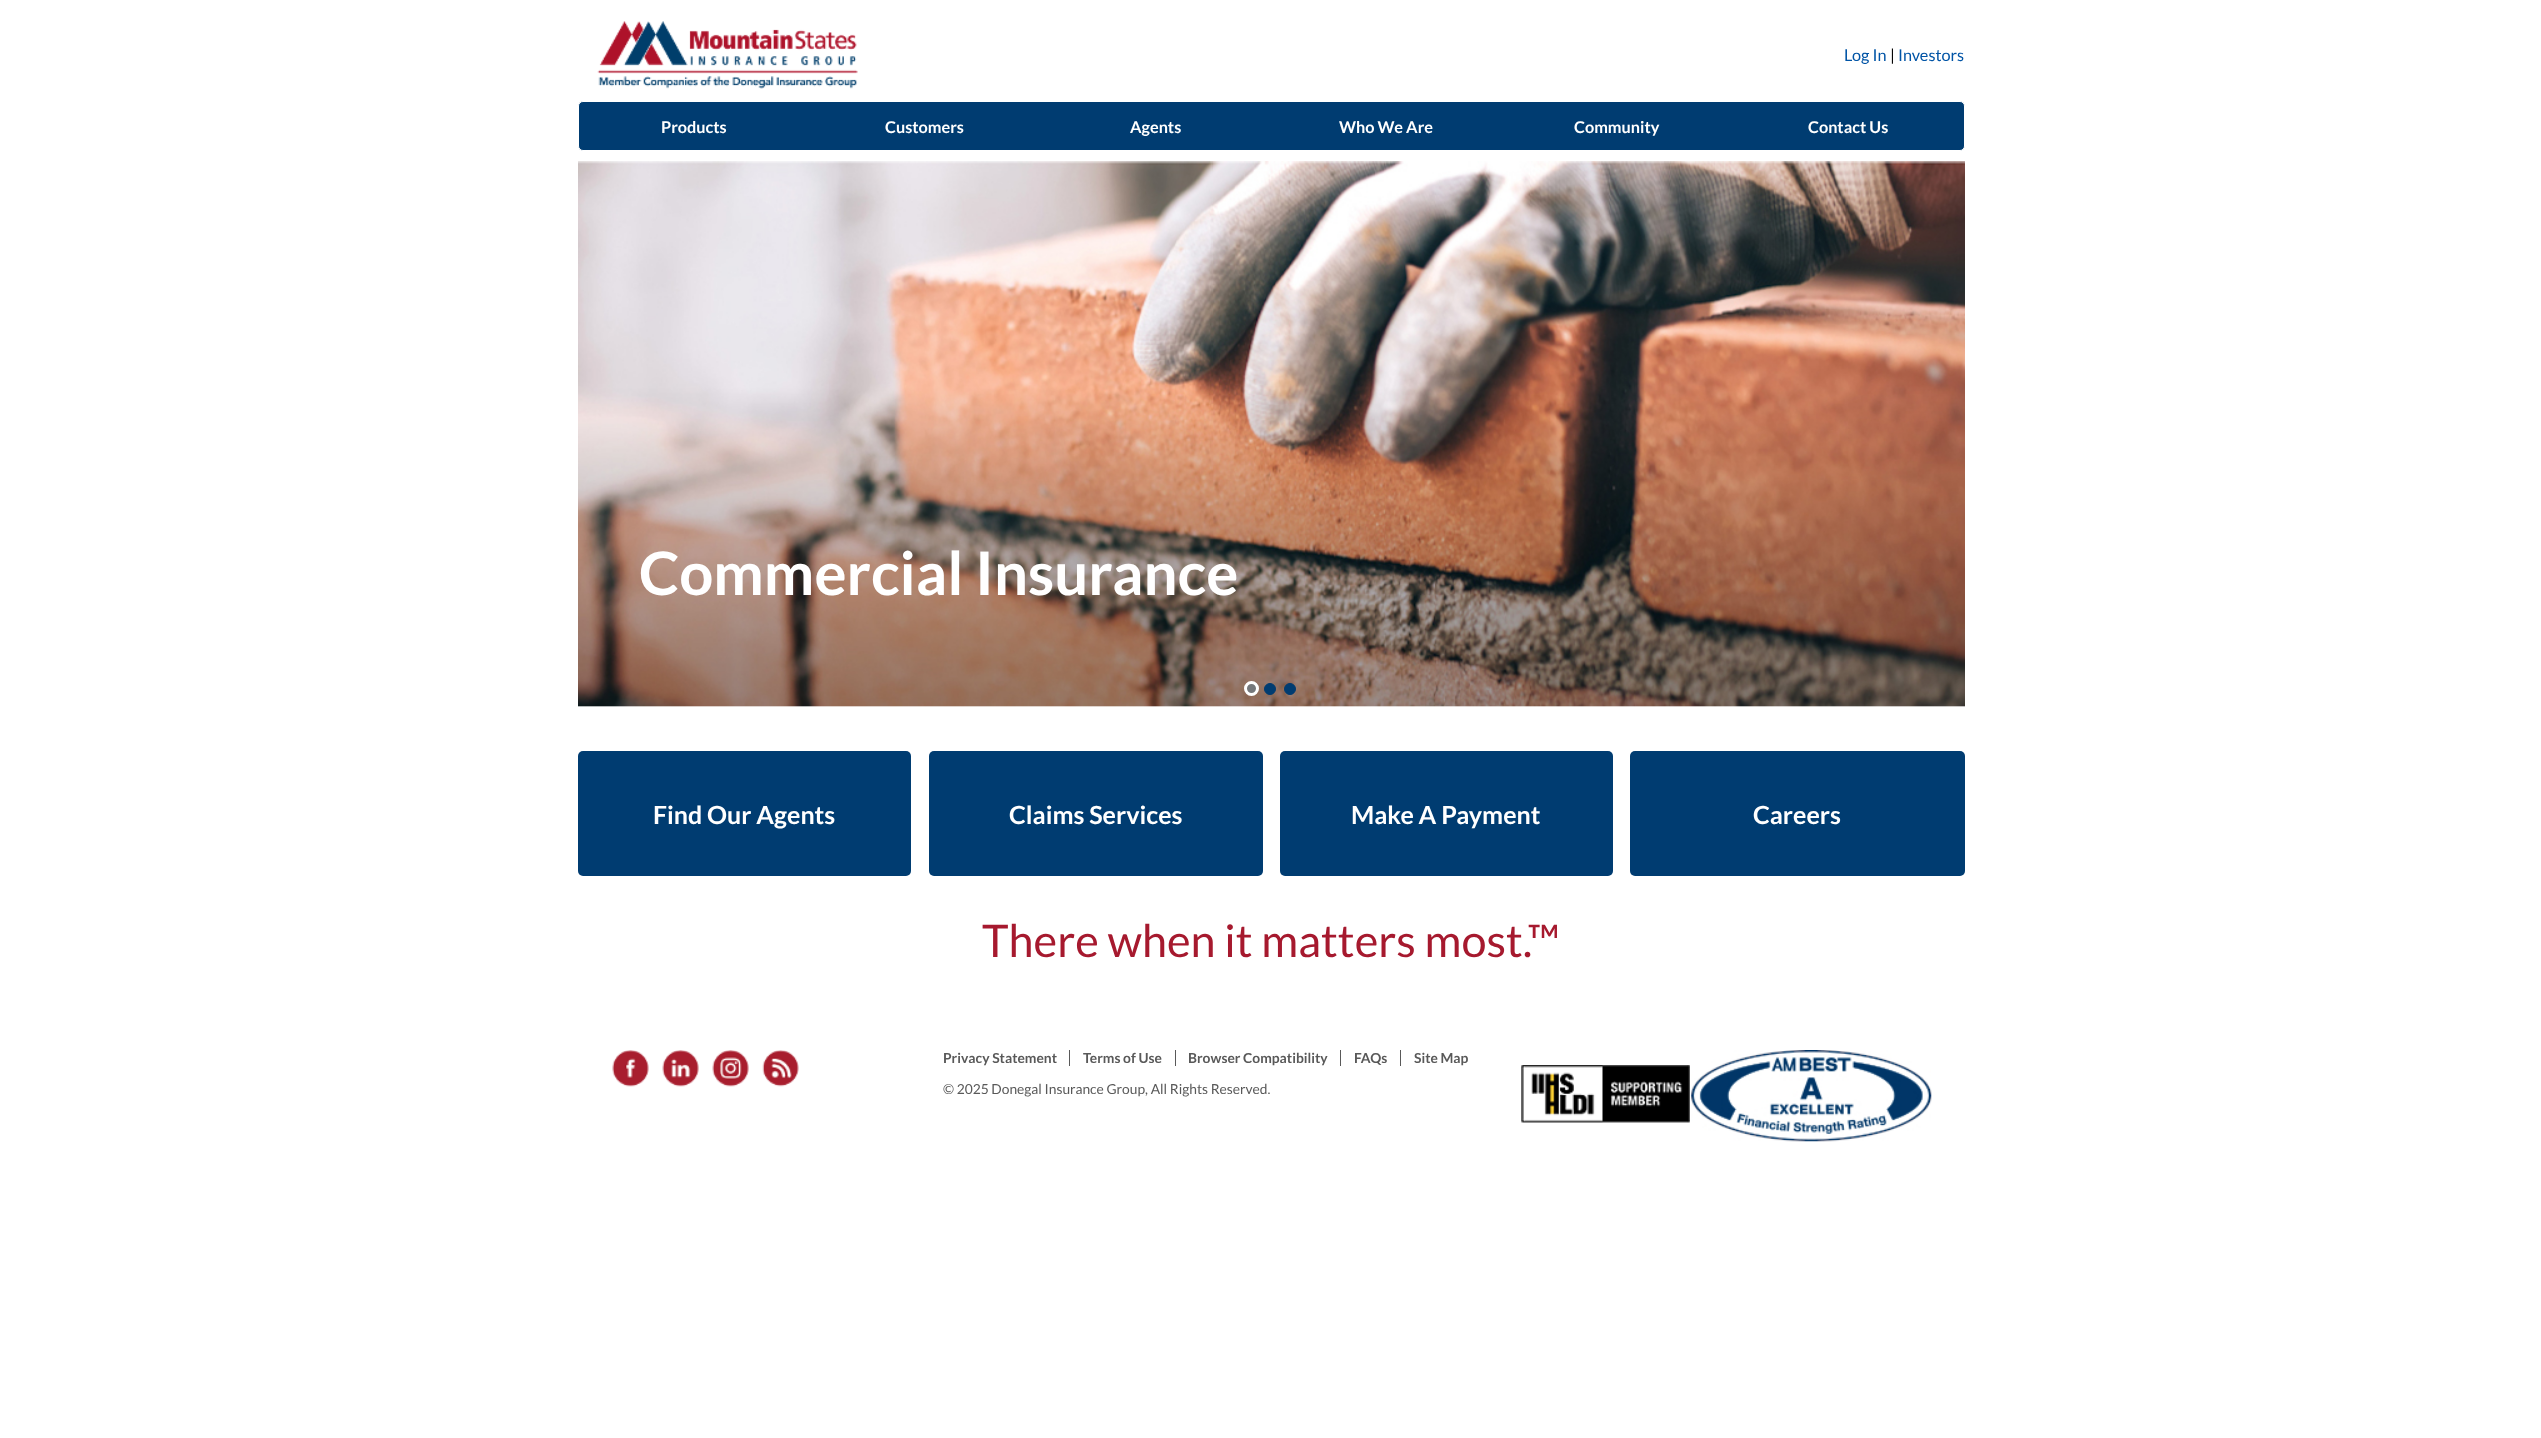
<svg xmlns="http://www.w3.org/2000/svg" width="2541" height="1438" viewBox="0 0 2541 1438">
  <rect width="100%" height="100%" fill="rgb(255,255,255)"/>
  <image x="597" y="21" width="261" height="68" href="pic1.png"/>
  <text x="1844" y="61" font-family="Lato" font-size="16.25" fill="rgb(0,84,166)">Log In</text>
  <text x="1890" y="61" font-family="Lato" font-size="16.25" fill="rgb(0,0,0)">|</text>
  <text x="1898" y="61" font-family="Lato" font-size="16.25" fill="rgb(0,84,166)">Investors</text>
  <rect x="578.5" y="101.5" width="1386" height="49" rx="4.5" fill="rgb(0,60,113)" stroke="rgb(255,255,255)"/>
  <g font-family="Lato" font-size="16.25" font-weight="bold" fill="rgb(255,255,255)">
    <text x="661" y="133">Products</text>
    <text x="885" y="133">Customers</text>
    <text x="1130" y="133">Agents</text>
    <text x="1339" y="133">Who We Are</text>
    <text x="1574" y="133">Community</text>
    <text x="1808" y="133">Contact Us</text>
  </g>
  <image x="578" y="161" width="1387" height="546" href="pic2.png"/>
  <text x="639" y="595" font-family="Lato" font-size="60" font-weight="bold" fill="rgb(255,255,255)">Commercial Insurance</text>
  <circle cx="1251.5" cy="688.5" r="6" fill="rgb(117,120,123)" stroke="rgb(255,255,255)" stroke-width="3"/>
  <circle cx="1270" cy="689" r="5.5" fill="rgb(0,60,113)" stroke="rgb(0,60,113)"/>
  <circle cx="1290" cy="689" r="5.5" fill="rgb(0,60,113)" stroke="rgb(0,60,113)"/>
  <rect x="578" y="751" width="333" height="125" rx="5" fill="rgb(0,60,113)"/>
  <text x="653" y="824" font-family="Lato" font-size="25" font-weight="bold" fill="rgb(255,255,255)">Find Our Agents</text>
  <rect x="929" y="751" width="334" height="125" rx="5" fill="rgb(0,60,113)"/>
  <text x="1009" y="824" font-family="Lato" font-size="25" font-weight="bold" fill="rgb(255,255,255)">Claims Services</text>
  <rect x="1280" y="751" width="333" height="125" rx="5" fill="rgb(0,60,113)"/>
  <text x="1351" y="824" font-family="Lato" font-size="25" font-weight="bold" fill="rgb(255,255,255)">Make A Payment</text>
  <rect x="1630" y="751" width="335" height="125" rx="5" fill="rgb(0,60,113)"/>
  <text x="1753" y="824" font-family="Lato" font-size="25" font-weight="bold" fill="rgb(255,255,255)">Careers</text>
  <text x="982" y="957" font-family="Lato" font-size="45" fill="rgb(166,25,46)">There when it matters most.™</text>
  <image x="612" y="1050" width="37" height="37" href="pic3.png"/>
  <image x="662" y="1050" width="37" height="37" href="pic4.png"/>
  <image x="712" y="1050" width="37" height="37" href="pic5.png"/>
  <image x="762" y="1050" width="37" height="37" href="pic6.png"/>
  <rect x="1069" y="1050" width="1" height="16" fill="rgb(89,89,89)"/>
  <text x="943" y="1063" font-family="Lato" font-size="13.8" font-weight="bold" fill="rgb(89,89,89)">Privacy Statement</text>
  <rect x="1175" y="1050" width="1" height="16" fill="rgb(89,89,89)"/>
  <text x="1083" y="1063" font-family="Lato" font-size="13.8" font-weight="bold" fill="rgb(89,89,89)">Terms of Use</text>
  <rect x="1340" y="1050" width="1" height="16" fill="rgb(89,89,89)"/>
  <text x="1188" y="1063" font-family="Lato" font-size="13.8" font-weight="bold" fill="rgb(89,89,89)">Browser Compatibility</text>
  <rect x="1400" y="1050" width="1" height="16" fill="rgb(89,89,89)"/>
  <g font-family="Lato" font-size="13.8" font-weight="bold" fill="rgb(89,89,89)">
    <text x="1354" y="1063">FAQs</text>
    <text x="1414" y="1063">Site Map</text>
  </g>
  <text x="943" y="1094" font-family="Lato" font-size="13.8" fill="rgb(89,89,89)">© 2025 Donegal Insurance Group, All Rights Reserved.</text>
  <image x="1521" y="1065" width="169" height="58" href="pic7.png"/>
  <image x="1691" y="1050" width="241" height="92" href="pic8.png"/>
</svg>
